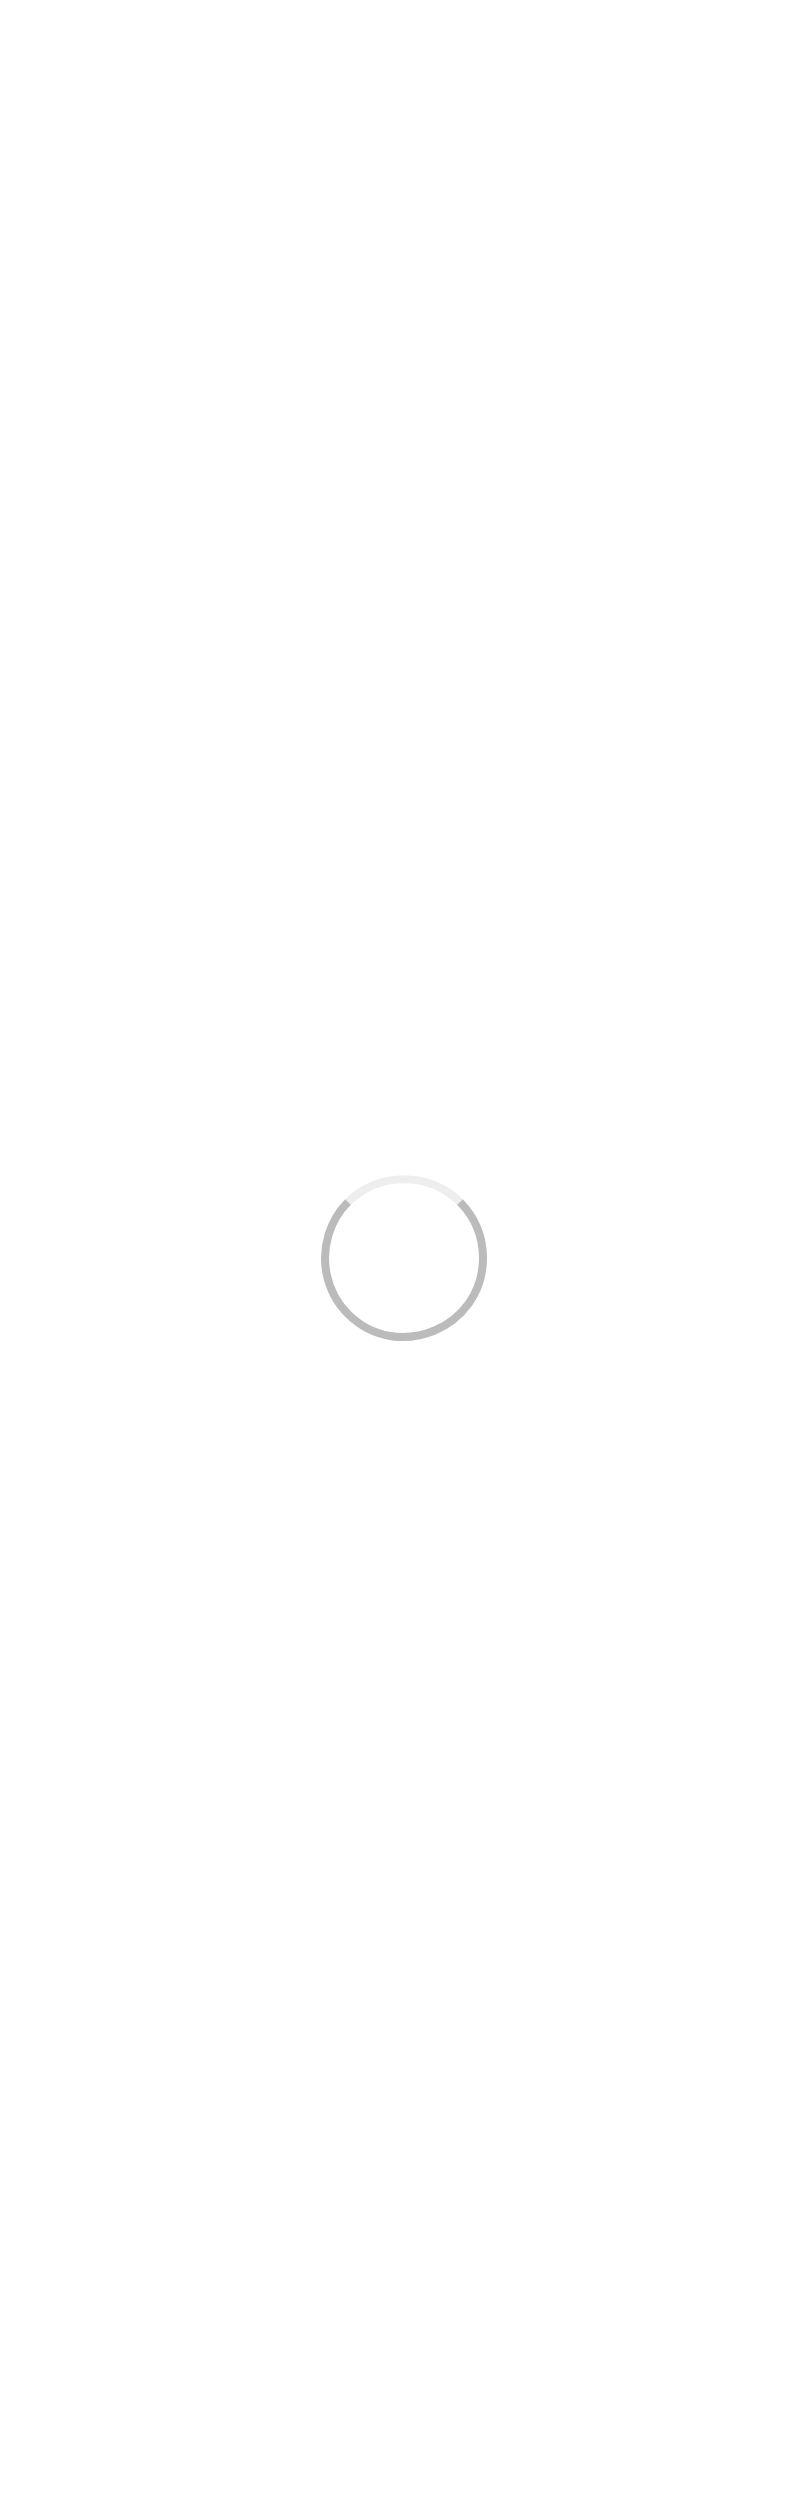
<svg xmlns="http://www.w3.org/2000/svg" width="805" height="2516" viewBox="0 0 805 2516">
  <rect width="100%" height="100%" fill="rgb(255,255,255)"/>
  <path d="M348 1202C379 1171.5 429 1171.5 460 1202" fill="none" stroke="rgb(238,238,238)" stroke-width="8"/>
  <path d="M460 1202C474.5 1217 483 1237 483 1258C483 1328 397.5 1363.5 348 1314C337 1303 329.5 1288.5 326.5 1273.5C321.5 1248 329.5 1220.5 348 1202" fill="none" stroke="rgb(187,187,187)" stroke-width="8"/>
</svg>
